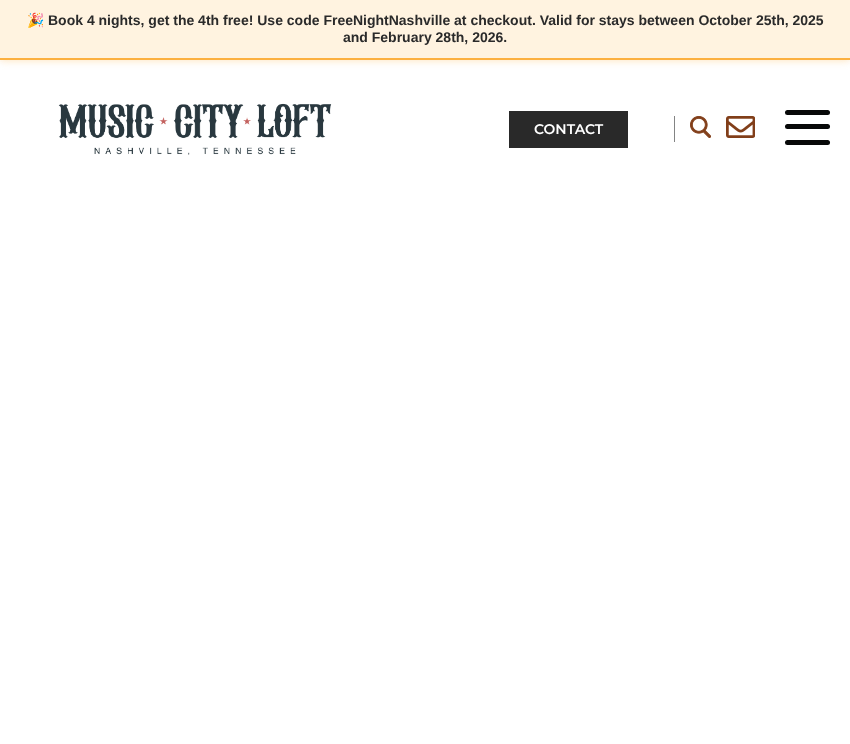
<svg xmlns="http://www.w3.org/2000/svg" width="850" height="744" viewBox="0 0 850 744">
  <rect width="100%" height="100%" fill="rgb(255,255,255)"/>
  <rect x="0" y="0" width="850" height="60" fill="rgba(252,176,64,0.4)" filter="blur(4px)"/>
  <rect x="0" y="0" width="850" height="58" fill="rgb(255,243,224)"/>
  <rect x="0" y="58" width="850" height="2" fill="rgb(252,176,64)"/>
  <text x="27" y="25" font-family="Noto Color Emoji" font-size="14" font-weight="bold" fill="rgb(42,42,42)">🎉</text>
  <g font-family="Liberation Sans" font-size="14" font-weight="bold" fill="rgb(42,42,42)">
    <text x="48" y="25">Book 4 nights, get the 4th free! Use code FreeNightNashville at checkout. Valid for stays between October 25th, 2025</text>
    <text x="343" y="42">and February 28th, 2026.</text>
  </g>
  <image x="58" y="103" width="274" height="52" href="pic1.png"/>
  <rect x="509" y="111" width="119" height="37" fill="rgb(41,41,41)"/>
  <text x="534" y="134" font-family="Montserrat" font-size="14" font-weight="100" fill="rgb(255,255,255)">CONTACT</text>
  <rect x="674" y="116" width="1" height="26" fill="rgb(131,132,132)"/>
  <image x="690" y="116" width="21" height="22" href="pic2.png"/>
  <image x="726" y="116" width="29" height="22" href="pic3.png"/>
  <rect x="785" y="110" width="45" height="5" rx="2.5" fill="rgb(7,8,8)"/>
  <rect x="785" y="124" width="45" height="5" rx="2.5" fill="rgb(7,8,8)"/>
  <rect x="785" y="140" width="45" height="5" rx="2.5" fill="rgb(7,8,8)"/>
</svg>
